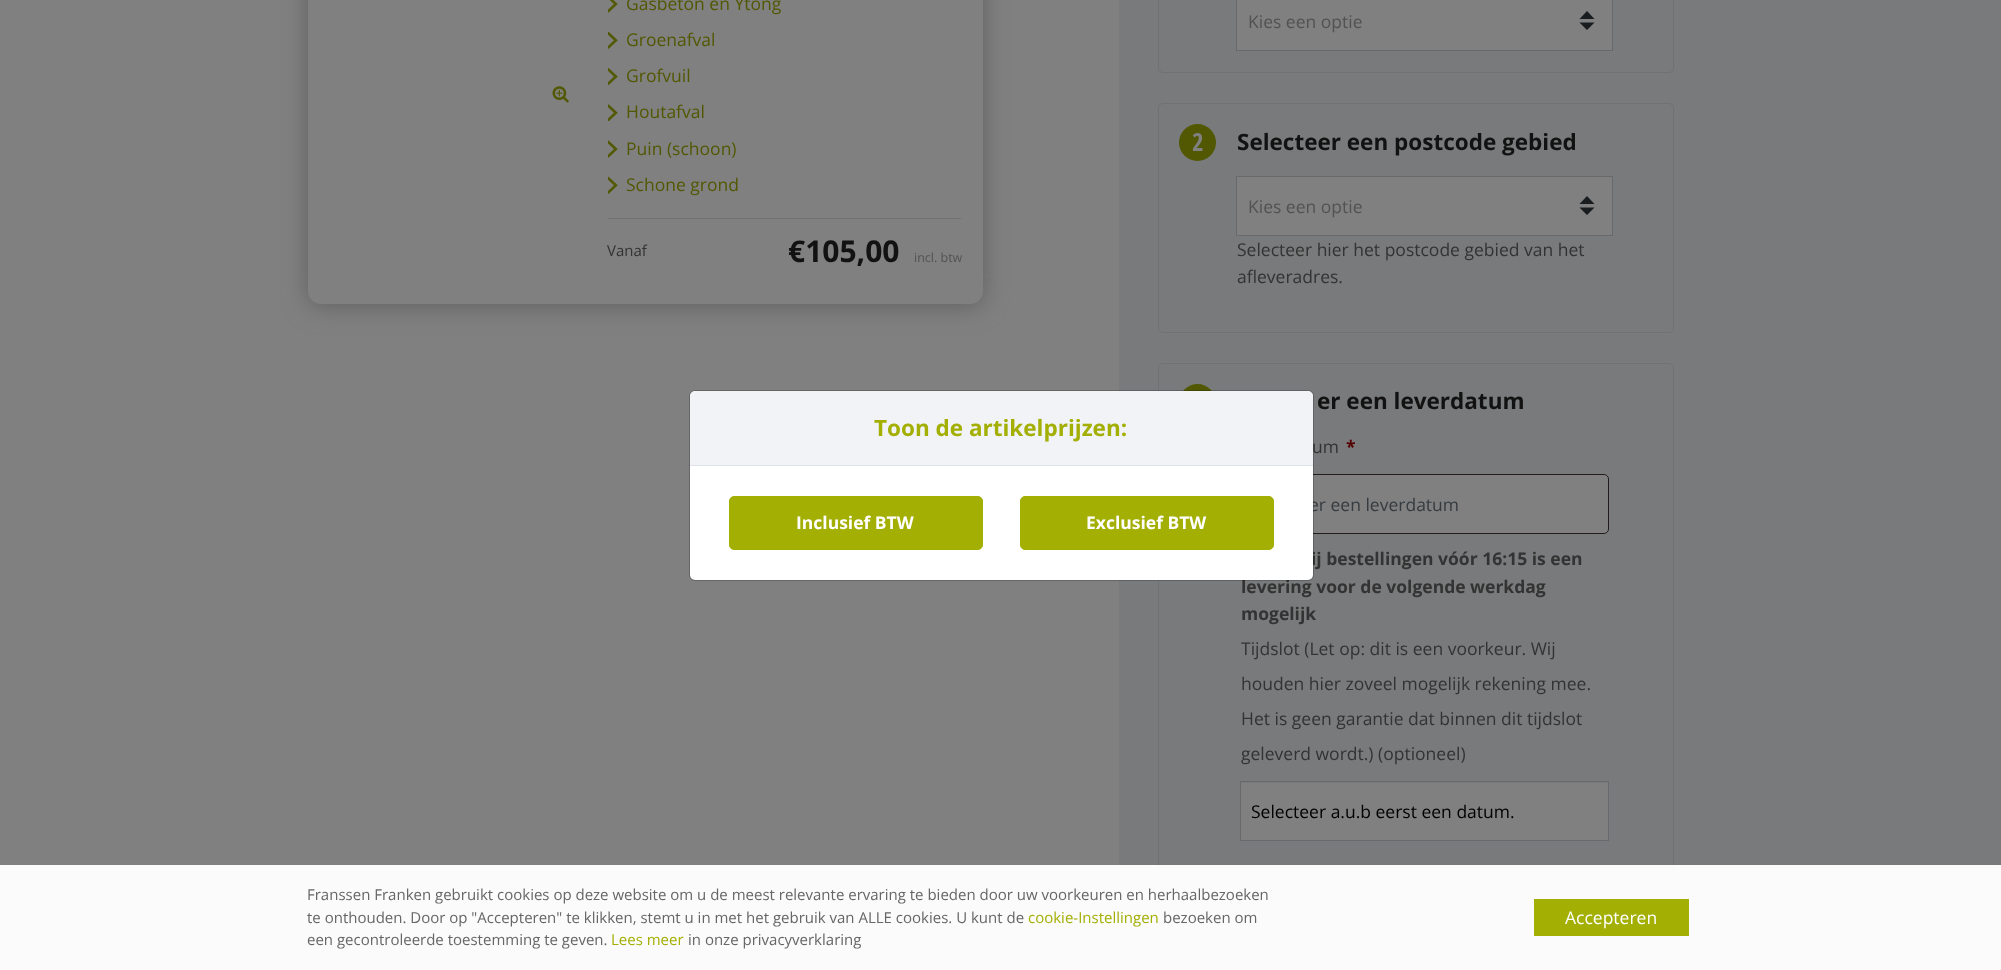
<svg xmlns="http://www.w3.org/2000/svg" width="2001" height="970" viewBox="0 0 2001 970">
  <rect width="100%" height="100%" fill="rgb(128,128,128)"/>
  <rect x="308" y="-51" width="675" height="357" rx="13" fill="rgb(95,95,95)" filter="blur(12.5px)"/>
  <rect x="308" y="-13" width="675" height="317" rx="13" fill="rgb(128,128,128)"/>
  <image x="552" y="86" width="17" height="17" href="pic1.png"/>
  <image x="608" y="0" width="10" height="13" href="pic2.png"/>
  <text x="626" y="10" font-family="Open Sans" font-size="17.5" fill="rgb(82,88,2)">Gasbeton en Ytong</text>
  <image x="608" y="31" width="10" height="18" href="pic3.png"/>
  <text x="626" y="46" font-family="Open Sans" font-size="17.5" fill="rgb(82,88,2)">Groenafval</text>
  <image x="608" y="68" width="10" height="17" href="pic4.png"/>
  <text x="626" y="82" font-family="Open Sans" font-size="17.5" fill="rgb(82,88,2)">Grofvuil</text>
  <image x="608" y="104" width="10" height="17" href="pic5.png"/>
  <text x="626" y="118" font-family="Open Sans" font-size="17.5" fill="rgb(82,88,2)">Houtafval</text>
  <image x="608" y="140" width="10" height="18" href="pic6.png"/>
  <text x="626" y="155" font-family="Open Sans" font-size="17.5" fill="rgb(82,88,2)">Puin (schoon)</text>
  <image x="608" y="176" width="10" height="18" href="pic3.png"/>
  <text x="626" y="191" font-family="Open Sans" font-size="17.5" fill="rgb(82,88,2)">Schone grond</text>
  <rect x="608" y="218" width="353" height="1" fill="rgb(111,113,115)"/>
  <text x="607" y="256" font-family="Open Sans" font-size="15" fill="rgb(51,51,51)">Vanaf</text>
  <text x="788" y="262" font-family="Open Sans" font-size="30" font-weight="bold" fill="rgb(18,18,18)">€105,00</text>
  <text x="914" y="262" font-family="Open Sans" font-size="12.5" fill="rgb(82,82,82)">incl. btw</text>
  <rect x="1119" y="0" width="882" height="970" fill="rgb(121,122,123)"/>
  <rect x="1158.5" y="-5.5" width="515" height="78" rx="4.5" fill="none" stroke="rgb(111,113,115)"/>
  <rect x="1237" y="0" width="375" height="50" fill="rgb(128,128,128)"/>
  <path d="M1587 11L1579.5 19H1594.5ZM1587 30L1579.5 22.5H1594.5Z" fill="rgb(26,29,32)"/>
  <rect x="1236.5" y="-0.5" width="376" height="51" fill="none" stroke="rgb(103,106,109)"/>
  <text x="1248" y="28" font-family="Open Sans" font-size="17.5" fill="rgb(82,82,82)">Kies een optie</text>
  <rect x="1158.5" y="103.5" width="515" height="229" rx="4.5" fill="none" stroke="rgb(111,113,115)"/>
  <circle cx="1197.5" cy="142.5" r="18.5" fill="rgb(82,88,2)"/>
  <text x="1192" y="151" font-family="Open Sans Condensed" font-size="25" font-weight="bold" fill="rgb(128,128,128)">2</text>
  <text x="1237" y="150" font-family="Open Sans" font-size="22.5" font-weight="bold" fill="rgb(18,18,18)">Selecteer een postcode gebied</text>
  <rect x="1237" y="177" width="375" height="58" fill="rgb(128,128,128)"/>
  <path d="M1587 196L1579.5 204H1594.5ZM1587 215L1579.5 207.5H1594.5Z" fill="rgb(26,29,32)"/>
  <rect x="1236.5" y="176.5" width="376" height="59" fill="none" stroke="rgb(103,106,109)"/>
  <text x="1248" y="213" font-family="Open Sans" font-size="17.5" fill="rgb(82,82,82)">Kies een optie</text>
  <g font-family="Open Sans" font-size="17.5" fill="rgb(51,51,51)">
    <text>
      <tspan x="1237" y="256">Selecteer hier het postcode gebied van het</tspan>
      <tspan x="1237" y="283">afleveradres.</tspan>
    </text>
  </g>
  <rect x="1158.5" y="363.5" width="515" height="510" rx="4.5" fill="none" stroke="rgb(111,113,115)"/>
  <circle cx="1197.5" cy="402.5" r="18.5" fill="rgb(82,88,2)"/>
  <text x="1317" y="409" font-family="Open Sans" font-size="22.5" font-weight="bold" fill="rgb(18,18,18)">er een leverdatum</text>
  <text x="1312" y="453" font-family="Open Sans" font-size="17.5" fill="rgb(51,51,51)">um</text>
  <text x="1346" y="453" font-family="Open Sans" font-size="17.5" font-weight="bold" fill="rgb(85,0,0)">*</text>
  <rect x="1240.5" y="474.5" width="368" height="59" rx="4.5" fill="rgb(128,128,128)" stroke="rgb(37,27,28)"/>
  <text x="1309" y="511" font-family="Open Sans" font-size="17.5" fill="rgb(54,59,63)">er een leverdatum</text>
  <g font-family="Open Sans" font-size="17.5" font-weight="bold" fill="rgb(51,51,51)">
    <text x="1311" y="565">ij bestellingen vóór 16:15 is een</text>
    <text>
      <tspan x="1241" y="593">levering voor de volgende werkdag</tspan>
      <tspan x="1241" y="620">mogelijk</tspan>
    </text>
  </g>
  <g font-family="Open Sans" font-size="17.5" fill="rgb(51,51,51)">
    <text x="1241" y="655">Tijdslot (Let op: dit is een voorkeur. Wij</text>
    <text x="1241" y="690">houden hier zoveel mogelijk rekening mee.</text>
    <text x="1241" y="725">Het is geen garantie dat binnen dit tijdslot</text>
    <text x="1241" y="760">geleverd wordt.) (optioneel)</text>
  </g>
  <rect x="1241" y="783" width="367" height="57" fill="rgb(128,128,128)"/>
  <rect x="1240.5" y="781.5" width="368" height="59" fill="none" stroke="rgb(103,106,109)"/>
  <text x="1251" y="818" font-family="Open Sans" font-size="17.5" fill="rgb(0,0,0)">Selecteer a.u.b eerst een datum.</text>
  <rect x="690" y="391" width="623" height="189" rx="5" fill="rgb(255,255,255)"/>
  <rect x="689.5" y="390.5" width="624" height="190" rx="5.5" fill="none" stroke="rgba(0,0,0,0.2)"/>
  <path d="M696 391H1307C1310.5 391 1313 393.5 1313 397V466H690V397C690 393.5 692.5 391 696 391Z" fill="rgb(241,243,246)"/>
  <rect x="690" y="465" width="623" height="1" fill="rgb(222,226,230)"/>
  <text x="874" y="436" font-family="Open Sans" font-size="22.5" font-weight="bold" fill="rgb(163,175,3)">Toon de artikelprijzen:</text>
  <rect x="729.5" y="496.5" width="253" height="53" rx="4.5" fill="rgb(163,175,2)" stroke="rgb(163,175,2)"/>
  <text x="796" y="529" font-family="Open Sans" font-size="17.5" font-weight="bold" fill="rgb(255,255,255)">Inclusief BTW</text>
  <rect x="1020.5" y="496.5" width="253" height="53" rx="4.5" fill="rgb(163,175,2)" stroke="rgb(163,175,2)"/>
  <text x="1086" y="529" font-family="Open Sans" font-size="17.5" font-weight="bold" fill="rgb(255,255,255)">Exclusief BTW</text>
  <rect x="0" y="865" width="2001" height="105" fill="rgba(255,255,255,0.97)"/>
  <g font-family="Open Sans" font-size="15" fill="rgb(102,102,102)">
    <text>
      <tspan x="307" y="900">Franssen Franken gebruikt cookies op deze website om u de meest relevante ervaring te bieden door uw voorkeuren en herhaalbezoeken</tspan>
      <tspan x="307" y="923">te onthouden. Door op "Accepteren" te klikken, stemt u in met het gebruik van ALLE cookies. U kunt de</tspan>
    </text>
  </g>
  <text x="1028" y="923" font-family="Open Sans" font-size="15" fill="rgb(163,175,3)">cookie-Instellingen</text>
  <g font-family="Open Sans" font-size="15" fill="rgb(102,102,102)">
    <text x="1163" y="923">bezoeken om</text>
    <text x="307" y="945">een gecontroleerde toestemming te geven.</text>
  </g>
  <text x="611" y="945" font-family="Open Sans" font-size="15" fill="rgb(163,175,3)">Lees meer</text>
  <text x="688" y="945" font-family="Open Sans" font-size="15" fill="rgb(102,102,102)">in onze privacyverklaring</text>
  <rect x="1534" y="899" width="155" height="37" fill="rgb(163,175,3)"/>
  <text x="1565" y="924" font-family="Open Sans" font-size="17.5" fill="rgb(255,255,255)">Accepteren</text>
</svg>
